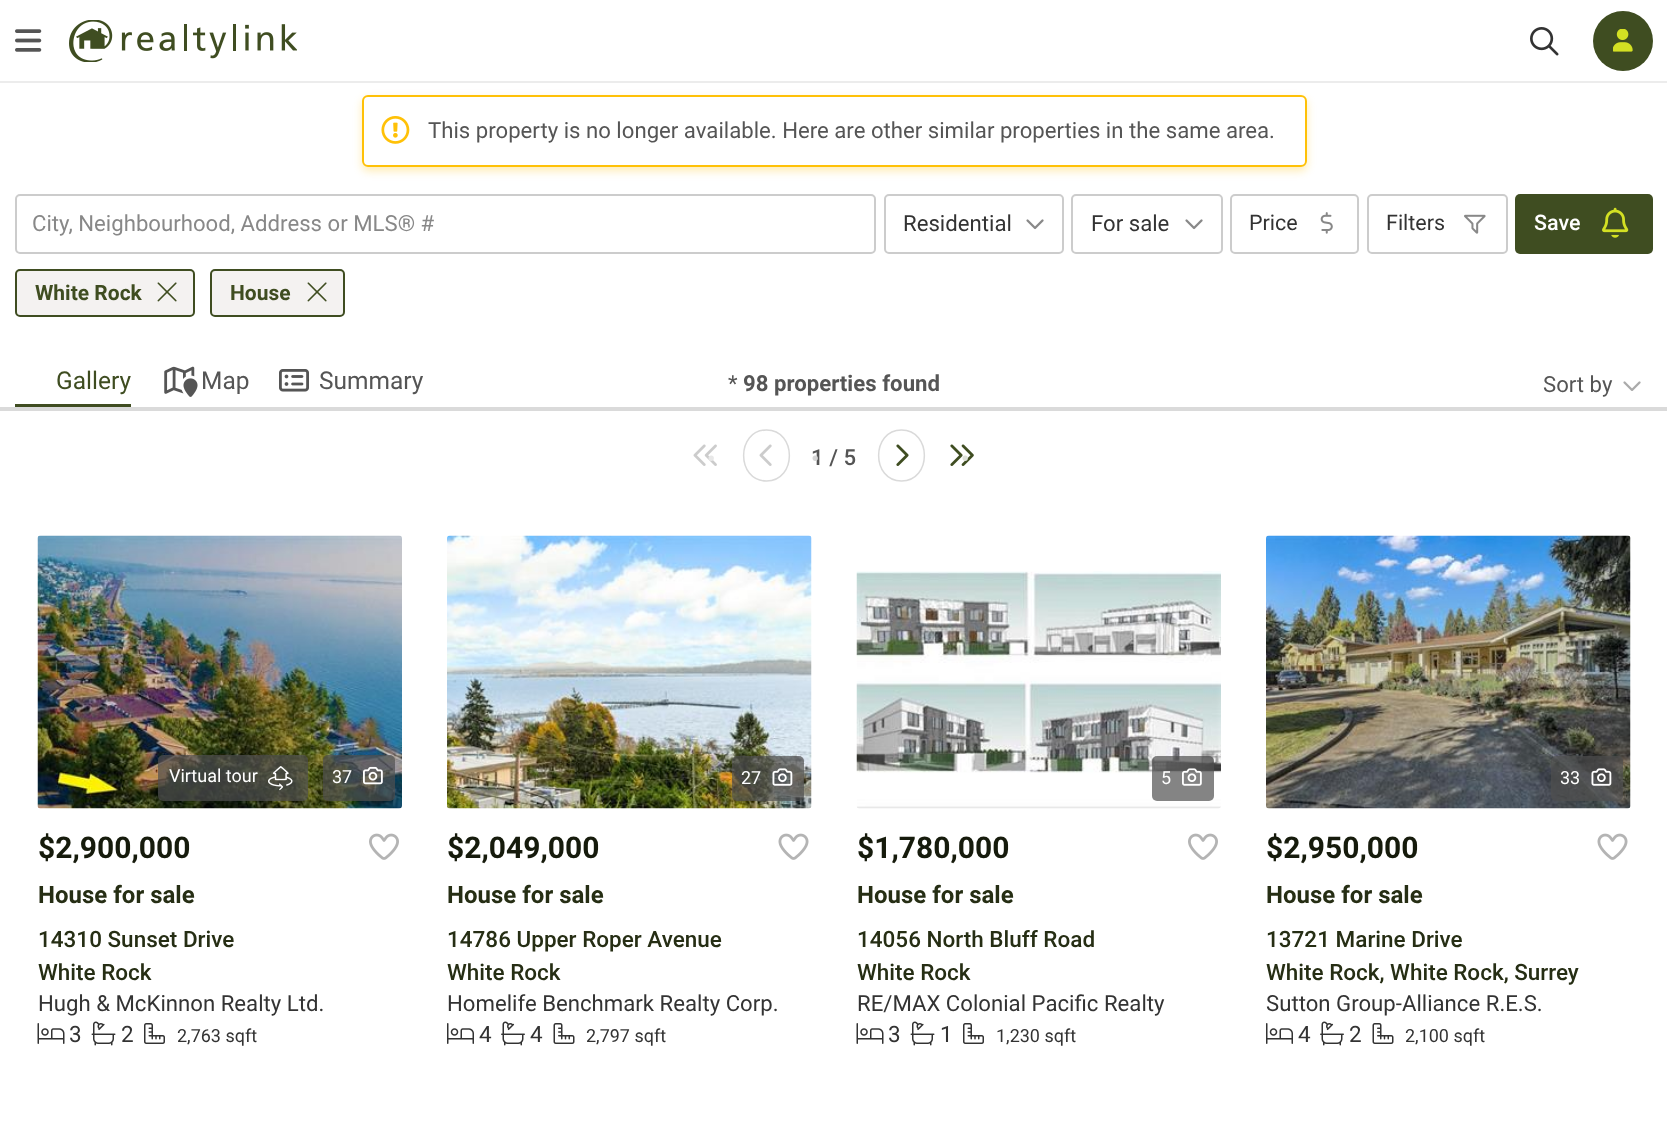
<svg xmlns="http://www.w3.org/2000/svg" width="1667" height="1125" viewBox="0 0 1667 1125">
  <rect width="100%" height="100%" fill="rgb(255,255,255)"/>
  <rect x="0" y="81" width="1667" height="2" fill="rgb(236,236,236)"/>
  <image x="15" y="29" width="27" height="23" href="pic1.png"/>
  <image x="69" y="20" width="228" height="42" href="pic2.png"/>
  <image x="1530" y="27" width="29" height="29" href="pic3.png"/>
  <circle cx="1623" cy="41" r="30" fill="rgb(63,77,33)"/>
  <image x="1613" y="29" width="20" height="23" href="pic4.png"/>
  <rect x="362" y="99" width="945" height="72" rx="6" fill="rgba(255,193,7,0.3)" filter="blur(4.5px)"/>
  <rect x="362" y="95" width="945" height="72" rx="6" fill="rgb(255,255,255)"/>
  <image x="381" y="116" width="29" height="28" href="pic5.png"/>
  <rect x="363" y="96" width="943" height="70" rx="5" fill="none" stroke="rgb(255,193,7)" stroke-width="2"/>
  <text x="428" y="138" font-family="Roboto" font-size="22.2" fill="rgb(85,85,85)">This property is no longer available. Here are other similar properties in the same area.</text>
  <rect x="16" y="195" width="859" height="58" rx="4" fill="none" stroke="rgb(204,204,204)" stroke-width="2"/>
  <text x="32" y="231" font-family="Roboto" font-size="22.2" fill="rgb(136,136,136)">City, Neighbourhood, Address or MLS® #</text>
  <rect x="885" y="195" width="178" height="58" rx="4" fill="none" stroke="rgb(204,204,204)" stroke-width="2"/>
  <text x="903" y="231" font-family="Roboto" font-size="22.2" fill="rgb(51,51,51)">Residential</text>
  <image x="1026" y="219" width="18" height="11" href="pic6.png"/>
  <rect x="1072" y="195" width="150" height="58" rx="4" fill="none" stroke="rgb(204,204,204)" stroke-width="2"/>
  <text x="1091" y="231" font-family="Roboto" font-size="22.2" fill="rgb(51,51,51)">For sale</text>
  <image x="1185" y="219" width="18" height="11" href="pic6.png"/>
  <rect x="1231" y="195" width="127" height="58" rx="4" fill="none" stroke="rgb(204,204,204)" stroke-width="2"/>
  <text x="1249" y="230" font-family="Roboto" font-size="21.5" fill="rgb(51,51,51)">Price</text>
  <image x="1320" y="212" width="13" height="22" href="pic7.png"/>
  <rect x="1368" y="195" width="139" height="58" rx="4" fill="none" stroke="rgb(204,204,204)" stroke-width="2"/>
  <text x="1386" y="230" font-family="Roboto" font-size="21.5" fill="rgb(51,51,51)">Filters</text>
  <image x="1464" y="214" width="22" height="20" href="pic8.png"/>
  <rect x="1515" y="194" width="138" height="60" rx="5" fill="rgb(63,77,33)"/>
  <text x="1534" y="230" font-family="Roboto" font-size="21.5" font-weight="500" fill="rgb(255,255,255)">Save</text>
  <image x="1602" y="207" width="27" height="31" href="pic9.png"/>
  <rect x="16" y="270" width="178" height="46" rx="4" fill="rgb(244,242,241)" stroke="rgb(63,77,33)" stroke-width="2"/>
  <text x="35" y="300" font-family="Roboto" font-size="21" font-weight="bold" fill="rgb(63,77,33)">White Rock</text>
  <image x="157" y="282" width="20" height="20" href="pic10.png"/>
  <rect x="211" y="270" width="133" height="46" rx="4" fill="rgb(244,242,241)" stroke="rgb(63,77,33)" stroke-width="2"/>
  <text x="230" y="300" font-family="Roboto" font-size="21" font-weight="bold" fill="rgb(63,77,33)">House</text>
  <image x="307" y="282" width="20" height="20" href="pic10.png"/>
  <rect x="0" y="407" width="1667" height="4" fill="rgb(218,218,218)"/>
  <rect x="15" y="404" width="116" height="3" fill="rgb(63,77,33)"/>
  <text x="56" y="389" font-family="Roboto" font-size="24.5" fill="rgb(63,77,33)">Gallery</text>
  <image x="164" y="366" width="34" height="31" href="pic11.png"/>
  <text x="201" y="389" font-family="Roboto" font-size="24.5" fill="rgb(85,85,85)">Map</text>
  <image x="279" y="369" width="30" height="23" href="pic12.png"/>
  <text x="319" y="389" font-family="Roboto" font-size="24.5" fill="rgb(85,85,85)">Summary</text>
  <text x="728" y="391" font-family="Roboto" font-size="22.2" fill="rgb(85,85,85)">*</text>
  <text x="743" y="391" font-family="Roboto" font-size="22.2" font-weight="bold" fill="rgb(85,85,85)">98 properties found</text>
  <text x="1543" y="392" font-family="Roboto" font-size="22.2" fill="rgb(85,85,85)">Sort by</text>
  <image x="1623" y="381" width="18" height="10" href="pic13.png"/>
  <image x="693" y="444" width="24" height="22" href="pic14.png"/>
  <text x="707" y="467" font-family="Roboto" font-size="24" font-weight="500" fill="rgb(232,232,232)">•</text>
  <path d="M766.5 430C797 430 797 481 766.5 481C736 481 736 430 766.5 430Z" fill="none" stroke="rgb(218,218,218)" stroke-width="1.5"/>
  <image x="759" y="444" width="13" height="22" href="pic15.png"/>
  <text x="811" y="465" font-family="Roboto" font-size="22.2" font-weight="500" fill="rgb(85,85,85)">1 / 5</text>
  <text x="811" y="467" font-family="Roboto" font-size="24" font-weight="500" fill="rgb(212,212,212)">•</text>
  <path d="M901.5 430C932 430 932 481 901.5 481C871 481 871 430 901.5 430Z" fill="none" stroke="rgb(218,218,218)" stroke-width="1.5"/>
  <image x="896" y="444" width="13" height="22" href="pic16.png"/>
  <image x="950" y="444" width="24" height="22" href="pic17.png"/>
  <text x="961" y="467" font-family="Roboto" font-size="24" font-weight="500" fill="rgb(222,225,217)">•</text>
  <image x="37" y="535" width="365" height="274" href="pic18.png"/>
  <rect x="158" y="755" width="150" height="46" rx="5" fill="rgba(80,80,80,0.7)"/>
  <text x="169" y="782" font-family="Roboto" font-size="18" fill="rgb(255,255,255)">Virtual tour</text>
  <image x="268" y="766" width="25" height="25" href="pic19.png"/>
  <rect x="323" y="755" width="72" height="46" rx="5" fill="rgba(80,80,80,0.7)"/>
  <text x="332" y="783" font-family="Roboto" font-size="18" fill="rgb(255,255,255)">37</text>
  <image x="363" y="766" width="20" height="19" href="pic20.png"/>
  <text x="38" y="858" font-family="Roboto" font-size="30" font-weight="bold" fill="rgb(22,27,12)">$2,900,000</text>
  <image x="369" y="833" width="30" height="27" href="pic21.png"/>
  <text x="38" y="903" font-family="Roboto" font-size="24" font-weight="bold" fill="rgb(38,46,20)">House for sale</text>
  <g font-family="Roboto" font-size="22.5" font-weight="500" fill="rgb(38,46,20)">
    <text>
      <tspan x="38" y="947">14310 Sunset Drive</tspan>
      <tspan x="38" y="980">White Rock</tspan>
    </text>
  </g>
  <text x="38" y="1011" font-family="Roboto" font-size="22.2" fill="rgb(51,51,51)">Hugh &amp; McKinnon Realty Ltd.</text>
  <image x="37" y="1023" width="28" height="21" href="pic22.png"/>
  <text x="69" y="1042" font-family="Roboto" font-size="22.5" fill="rgb(51,51,51)">3</text>
  <image x="91" y="1021" width="25" height="25" href="pic23.png"/>
  <text x="121" y="1042" font-family="Roboto" font-size="22.5" fill="rgb(51,51,51)">2</text>
  <image x="144" y="1023" width="21" height="21" href="pic24.png"/>
  <text x="177" y="1042" font-family="Roboto" font-size="18" fill="rgb(51,51,51)">2,763 sqft</text>
  <image x="447" y="535" width="365" height="274" href="pic25.png"/>
  <rect x="732" y="756" width="72" height="45" rx="5" fill="rgba(80,80,80,0.7)"/>
  <text x="741" y="784" font-family="Roboto" font-size="18" fill="rgb(255,255,255)">27</text>
  <image x="772" y="768" width="21" height="18" href="pic26.png"/>
  <text x="447" y="858" font-family="Roboto" font-size="30" font-weight="bold" fill="rgb(22,27,12)">$2,049,000</text>
  <image x="778" y="833" width="31" height="27" href="pic27.png"/>
  <text x="447" y="903" font-family="Roboto" font-size="24" font-weight="bold" fill="rgb(38,46,20)">House for sale</text>
  <g font-family="Roboto" font-size="22.5" font-weight="500" fill="rgb(38,46,20)">
    <text>
      <tspan x="447" y="947">14786 Upper Roper Avenue</tspan>
      <tspan x="447" y="980">White Rock</tspan>
    </text>
  </g>
  <text x="447" y="1011" font-family="Roboto" font-size="22.2" fill="rgb(51,51,51)">Homelife Benchmark Realty Corp.</text>
  <image x="447" y="1023" width="27" height="21" href="pic28.png"/>
  <text x="479" y="1042" font-family="Roboto" font-size="22.5" fill="rgb(51,51,51)">4</text>
  <image x="501" y="1021" width="24" height="25" href="pic29.png"/>
  <text x="530" y="1042" font-family="Roboto" font-size="22.5" fill="rgb(51,51,51)">4</text>
  <image x="553" y="1023" width="22" height="21" href="pic30.png"/>
  <text x="586" y="1042" font-family="Roboto" font-size="18" fill="rgb(51,51,51)">2,797 sqft</text>
  <image x="856" y="571" width="365" height="238" href="pic31.png"/>
  <rect x="1152" y="756" width="62" height="45" rx="5" fill="rgba(80,80,80,0.7)"/>
  <text x="1161" y="784" font-family="Roboto" font-size="18" fill="rgb(255,255,255)">5</text>
  <image x="1182" y="768" width="20" height="18" href="pic32.png"/>
  <text x="857" y="858" font-family="Roboto" font-size="30" font-weight="bold" fill="rgb(22,27,12)">$1,780,000</text>
  <image x="1188" y="833" width="30" height="27" href="pic21.png"/>
  <text x="857" y="903" font-family="Roboto" font-size="24" font-weight="bold" fill="rgb(38,46,20)">House for sale</text>
  <g font-family="Roboto" font-size="22.5" font-weight="500" fill="rgb(38,46,20)">
    <text>
      <tspan x="857" y="947">14056 North Bluff Road</tspan>
      <tspan x="857" y="980">White Rock</tspan>
    </text>
  </g>
  <text x="857" y="1011" font-family="Roboto" font-size="22.2" fill="rgb(51,51,51)">RE/MAX Colonial Pacific Realty</text>
  <image x="856" y="1023" width="28" height="21" href="pic22.png"/>
  <text x="888" y="1042" font-family="Roboto" font-size="22.5" fill="rgb(51,51,51)">3</text>
  <image x="910" y="1021" width="25" height="25" href="pic23.png"/>
  <text x="940" y="1042" font-family="Roboto" font-size="22.5" fill="rgb(51,51,51)">1</text>
  <image x="963" y="1023" width="21" height="21" href="pic24.png"/>
  <text x="996" y="1042" font-family="Roboto" font-size="18" fill="rgb(51,51,51)">1,230 sqft</text>
  <image x="1266" y="535" width="365" height="274" href="pic33.png"/>
  <rect x="1551" y="756" width="72" height="45" rx="5" fill="rgba(80,80,80,0.7)"/>
  <text x="1560" y="784" font-family="Roboto" font-size="18" fill="rgb(255,255,255)">33</text>
  <image x="1591" y="768" width="21" height="18" href="pic34.png"/>
  <text x="1266" y="858" font-family="Roboto" font-size="30" font-weight="bold" fill="rgb(22,27,12)">$2,950,000</text>
  <image x="1597" y="833" width="31" height="27" href="pic27.png"/>
  <text x="1266" y="903" font-family="Roboto" font-size="24" font-weight="bold" fill="rgb(38,46,20)">House for sale</text>
  <g font-family="Roboto" font-size="22.5" font-weight="500" fill="rgb(38,46,20)">
    <text>
      <tspan x="1266" y="947">13721 Marine Drive</tspan>
      <tspan x="1266" y="980">White Rock, White Rock, Surrey</tspan>
    </text>
  </g>
  <text x="1266" y="1011" font-family="Roboto" font-size="22.2" fill="rgb(51,51,51)">Sutton Group-Alliance R.E.S.</text>
  <image x="1266" y="1023" width="27" height="21" href="pic28.png"/>
  <text x="1298" y="1042" font-family="Roboto" font-size="22.5" fill="rgb(51,51,51)">4</text>
  <image x="1320" y="1021" width="24" height="25" href="pic29.png"/>
  <text x="1349" y="1042" font-family="Roboto" font-size="22.5" fill="rgb(51,51,51)">2</text>
  <image x="1372" y="1023" width="22" height="21" href="pic30.png"/>
  <text x="1405" y="1042" font-family="Roboto" font-size="18" fill="rgb(51,51,51)">2,100 sqft</text>
</svg>
